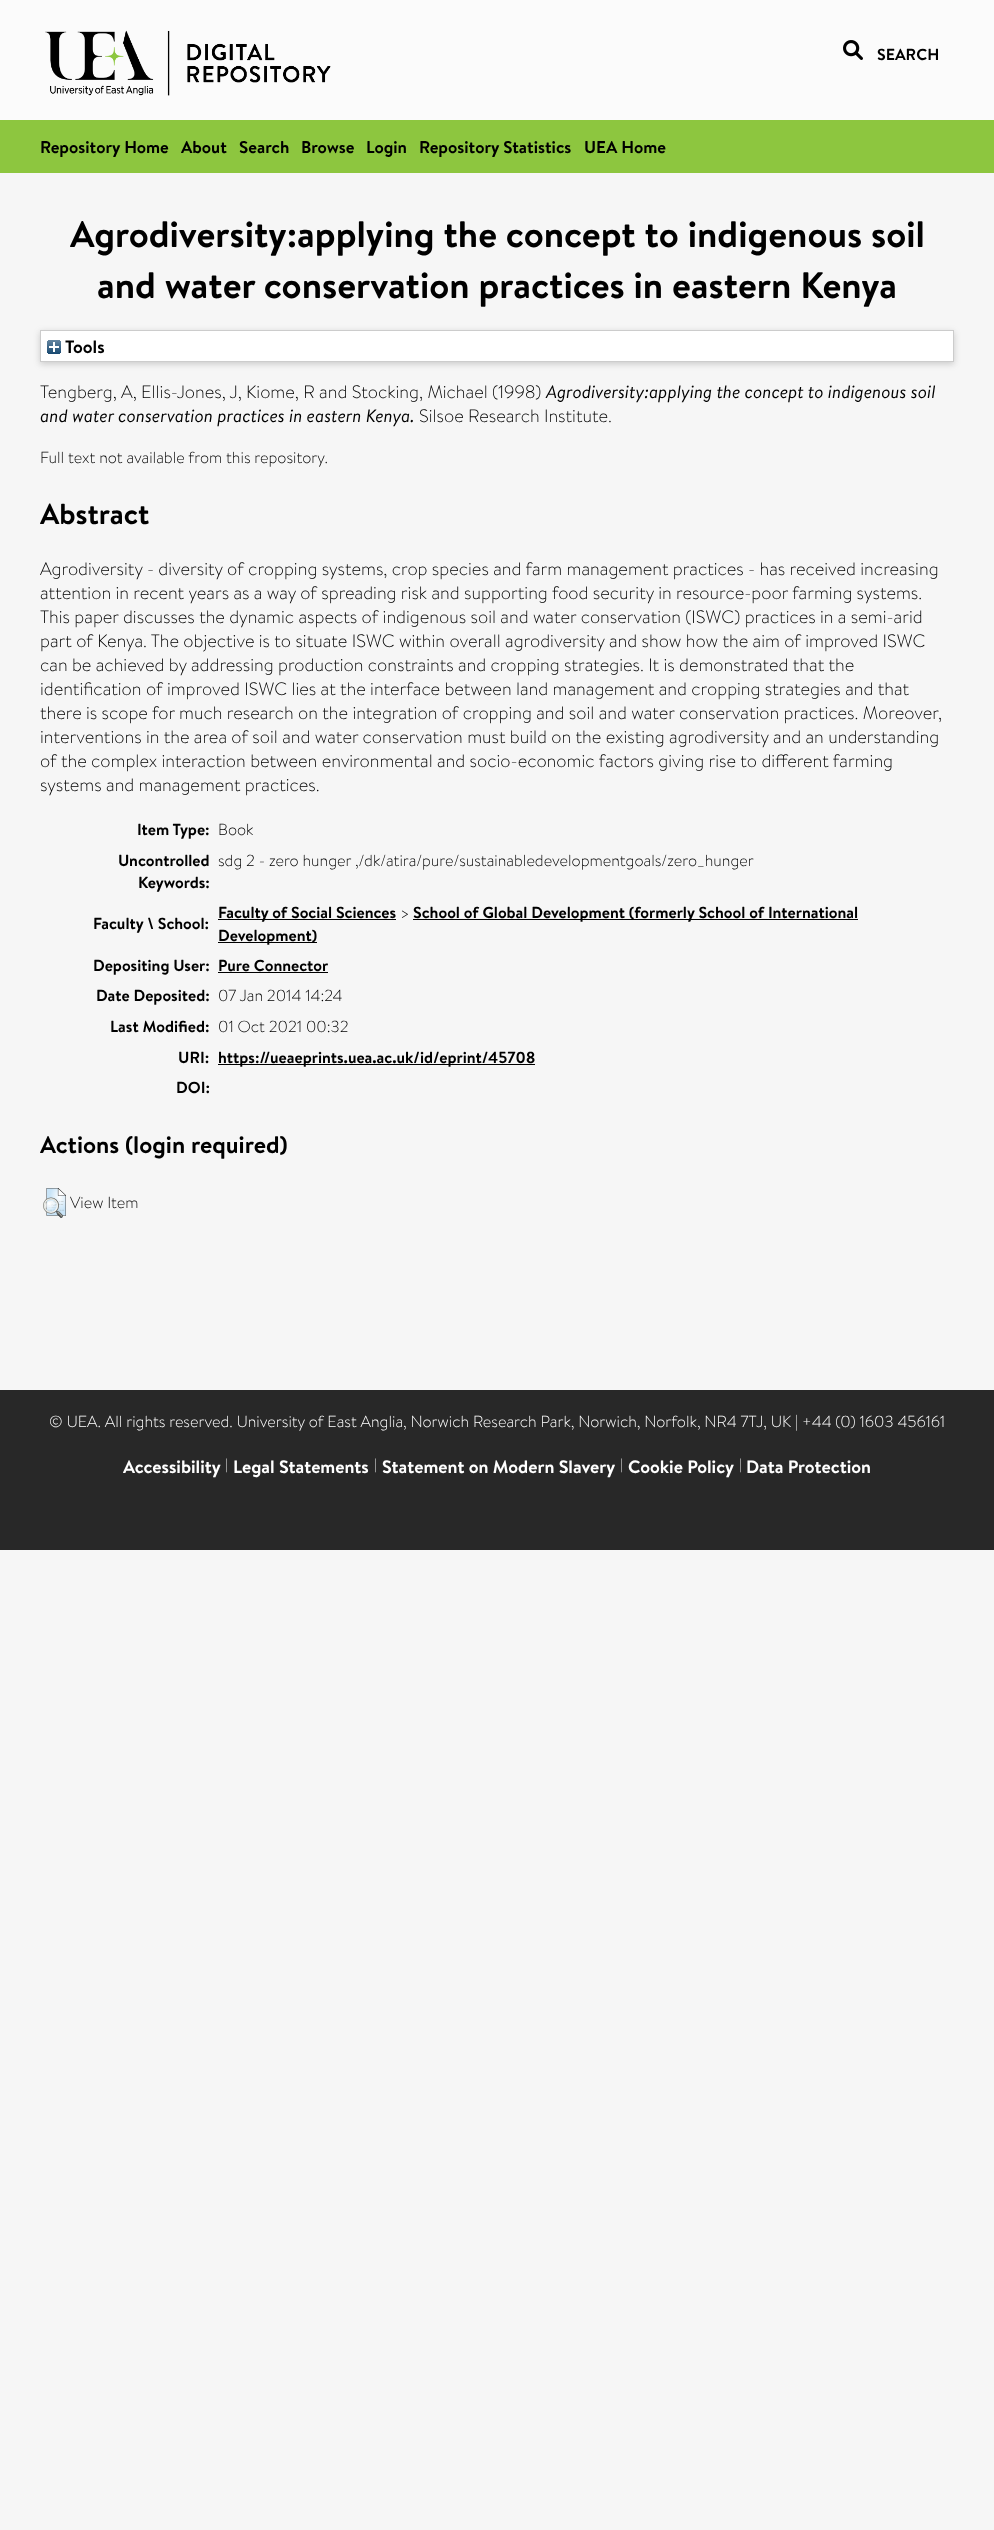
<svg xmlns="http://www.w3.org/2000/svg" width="994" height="2530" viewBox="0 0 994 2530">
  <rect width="100%" height="100%" fill="rgb(246,246,246)"/>
  <rect x="0" y="0" width="994" height="120" fill="rgb(251,251,251)"/>
  <image x="45" y="30" width="286" height="66" href="pic1.png"/>
  <image x="843" y="40" width="20" height="20" href="pic2.png"/>
  <text x="877" y="60" font-family="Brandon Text" font-size="16" font-weight="bold" fill="rgb(0,0,0)">SEARCH</text>
  <rect x="0" y="120" width="994" height="53" fill="rgb(141,198,63)"/>
  <g font-family="Brandon Text" font-size="17" font-weight="bold" fill="rgb(0,0,0)">
    <text x="40" y="153">Repository Home</text>
    <text x="181" y="153">About</text>
    <text x="239" y="153">Search</text>
    <text x="301" y="153">Browse</text>
    <text x="366" y="153">Login</text>
    <text x="419" y="153">Repository Statistics</text>
    <text x="584" y="153">UEA Home</text>
  </g>
  <g font-family="Brandon Text" font-size="36.8" font-weight="bold" fill="rgb(0,0,0)">
    <text x="70" y="247">Agrodiversity:applying the concept to indigenous soil</text>
    <text x="97" y="298">and water conservation practices in eastern Kenya</text>
  </g>
  <rect x="40" y="332" width="914" height="32" fill="rgba(100,100,100,0.3)" filter="blur(3px)"/>
  <rect x="40.5" y="330.5" width="913" height="31" fill="rgb(255,255,255)" stroke="rgb(204,204,204)"/>
  <image x="47" y="340" width="14" height="14" href="pic3.png"/>
  <text x="65" y="353" font-family="Brandon Text" font-size="18" font-weight="bold" fill="rgb(0,0,0)">Tools</text>
  <text x="40" y="398" font-family="Brandon Text" font-size="18" font-weight="300" fill="rgb(0,0,0)">Tengberg, A, Ellis-Jones, J, Kiome, R and Stocking, Michael (1998)</text>
  <g font-family="Brandon Text" font-size="18" font-style="italic" fill="rgb(0,0,0)">
    <text x="546" y="398">Agrodiversity:applying the concept to indigenous soil</text>
    <text x="40" y="422">and water conservation practices in eastern Kenya.</text>
  </g>
  <text x="419" y="422" font-family="Brandon Text" font-size="18" font-weight="300" fill="rgb(0,0,0)">Silsoe Research Institute.</text>
  <text x="40" y="463" font-family="Brandon Text" font-size="16" font-weight="300" fill="rgb(0,0,0)">Full text not available from this repository.</text>
  <text x="40" y="524" font-family="Brandon Text" font-size="29" font-weight="bold" fill="rgb(0,0,0)">Abstract</text>
  <g font-family="Brandon Text" font-size="18" font-weight="300" fill="rgb(0,0,0)">
    <text>
      <tspan x="40" y="575">Agrodiversity - diversity of cropping systems, crop species and farm management practices - has received increasing</tspan>
      <tspan x="40" y="599">attention in recent years as a way of spreading risk and supporting food security in resource-poor farming systems.</tspan>
      <tspan x="40" y="623">This paper discusses the dynamic aspects of indigenous soil and water conservation (ISWC) practices in a semi-arid</tspan>
      <tspan x="40" y="647">part of Kenya. The objective is to situate ISWC within overall agrodiversity and show how the aim of improved ISWC</tspan>
      <tspan x="40" y="671">can be achieved by addressing production constraints and cropping strategies. It is demonstrated that the</tspan>
      <tspan x="40" y="695">identification of improved ISWC lies at the interface between land management and cropping strategies and that</tspan>
      <tspan x="40" y="719">there is scope for much research on the integration of cropping and soil and water conservation practices. Moreover,</tspan>
      <tspan x="40" y="743">interventions in the area of soil and water conservation must build on the existing agrodiversity and an understanding</tspan>
      <tspan x="40" y="767">of the complex interaction between environmental and socio-economic factors giving rise to different farming</tspan>
      <tspan x="40" y="791">systems and management practices.</tspan>
    </text>
  </g>
  <text x="137" y="835" font-family="Brandon Text" font-size="16" font-weight="bold" fill="rgb(0,0,0)">Item Type:</text>
  <text x="218" y="835" font-family="Brandon Text" font-size="16" font-weight="300" fill="rgb(0,0,0)">Book</text>
  <g font-family="Brandon Text" font-size="16" font-weight="bold" fill="rgb(0,0,0)">
    <text x="118" y="866">Uncontrolled</text>
    <text x="138" y="888">Keywords:</text>
  </g>
  <text x="218" y="866" font-family="Brandon Text" font-size="16" font-weight="300" fill="rgb(0,0,0)">sdg 2 - zero hunger ,/dk/atira/pure/sustainabledevelopmentgoals/zero_hunger</text>
  <text x="93" y="929" font-family="Brandon Text" font-size="16" font-weight="bold" fill="rgb(0,0,0)">Faculty \ School:</text>
  <rect x="218" y="919" width="178" height="1" fill="rgb(0,0,0)"/>
  <text x="218" y="918" font-family="Brandon Text" font-size="16" font-weight="bold" fill="rgb(0,0,0)">Faculty of Social Sciences</text>
  <text x="400" y="918" font-family="Brandon Text" font-size="16" font-weight="300" fill="rgb(0,0,0)">&gt;</text>
  <rect x="413" y="919" width="445" height="1" fill="rgb(0,0,0)"/>
  <text x="413" y="918" font-family="Brandon Text" font-size="16" font-weight="bold" fill="rgb(0,0,0)">School of Global Development (formerly School of International</text>
  <rect x="218" y="942" width="99" height="1" fill="rgb(0,0,0)"/>
  <g font-family="Brandon Text" font-size="16" font-weight="bold" fill="rgb(0,0,0)">
    <text x="218" y="941">Development)</text>
    <text x="93" y="971">Depositing User:</text>
    <text x="218" y="971">Pure Connector</text>
  </g>
  <rect x="218" y="972" width="110" height="1" fill="rgb(0,0,0)"/>
  <text x="96" y="1001" font-family="Brandon Text" font-size="16" font-weight="bold" fill="rgb(0,0,0)">Date Deposited:</text>
  <text x="218" y="1001" font-family="Brandon Text" font-size="16" font-weight="300" fill="rgb(0,0,0)">07 Jan 2014 14:24</text>
  <text x="110" y="1032" font-family="Brandon Text" font-size="16" font-weight="bold" fill="rgb(0,0,0)">Last Modified:</text>
  <text x="218" y="1032" font-family="Brandon Text" font-size="16" font-weight="300" fill="rgb(0,0,0)">01 Oct 2021 00:32</text>
  <text x="178" y="1063" font-family="Brandon Text" font-size="16" font-weight="bold" fill="rgb(0,0,0)">URI:</text>
  <rect x="218" y="1064" width="317" height="1" fill="rgb(0,0,0)"/>
  <g font-family="Brandon Text" font-size="16" font-weight="bold" fill="rgb(0,0,0)">
    <text x="218" y="1063">https://ueaeprints.uea.ac.uk/id/eprint/45708</text>
    <text x="176" y="1093">DOI:</text>
  </g>
  <text x="40" y="1153" font-family="Brandon Text" font-size="24" font-weight="bold" fill="rgb(0,0,0)">Actions (login required)</text>
  <image x="43" y="1188" width="23" height="30" href="pic4.png"/>
  <text x="70" y="1208" font-family="Brandon Text" font-size="16" font-weight="300" fill="rgb(0,0,0)">View Item</text>
  <rect x="0" y="1390" width="994" height="160" fill="rgb(40,40,40)"/>
  <text x="49" y="1427" font-family="Brandon Text" font-size="16" font-weight="300" fill="rgb(255,255,255)">© UEA. All rights reserved. University of East Anglia, Norwich Research Park, Norwich, Norfolk, NR4 7TJ, UK | +44 (0) 1603 456161</text>
  <text x="123" y="1473" font-family="Brandon Text" font-size="18" font-weight="bold" fill="rgb(255,255,255)">Accessibility</text>
  <text x="225" y="1469" font-family="Brandon Text" font-size="14" font-weight="300" fill="rgb(255,255,255)">|</text>
  <text x="233" y="1473" font-family="Brandon Text" font-size="18" font-weight="bold" fill="rgb(255,255,255)">Legal Statements</text>
  <text x="374" y="1469" font-family="Brandon Text" font-size="14" font-weight="300" fill="rgb(255,255,255)">|</text>
  <text x="382" y="1473" font-family="Brandon Text" font-size="18" font-weight="bold" fill="rgb(255,255,255)">Statement on Modern Slavery</text>
  <text x="620" y="1469" font-family="Brandon Text" font-size="14" font-weight="300" fill="rgb(255,255,255)">|</text>
  <text x="628" y="1473" font-family="Brandon Text" font-size="18" font-weight="bold" fill="rgb(255,255,255)">Cookie Policy</text>
  <text x="739" y="1469" font-family="Brandon Text" font-size="14" font-weight="300" fill="rgb(255,255,255)">|</text>
  <text x="746" y="1473" font-family="Brandon Text" font-size="18" font-weight="bold" fill="rgb(255,255,255)">Data Protection</text>
</svg>
